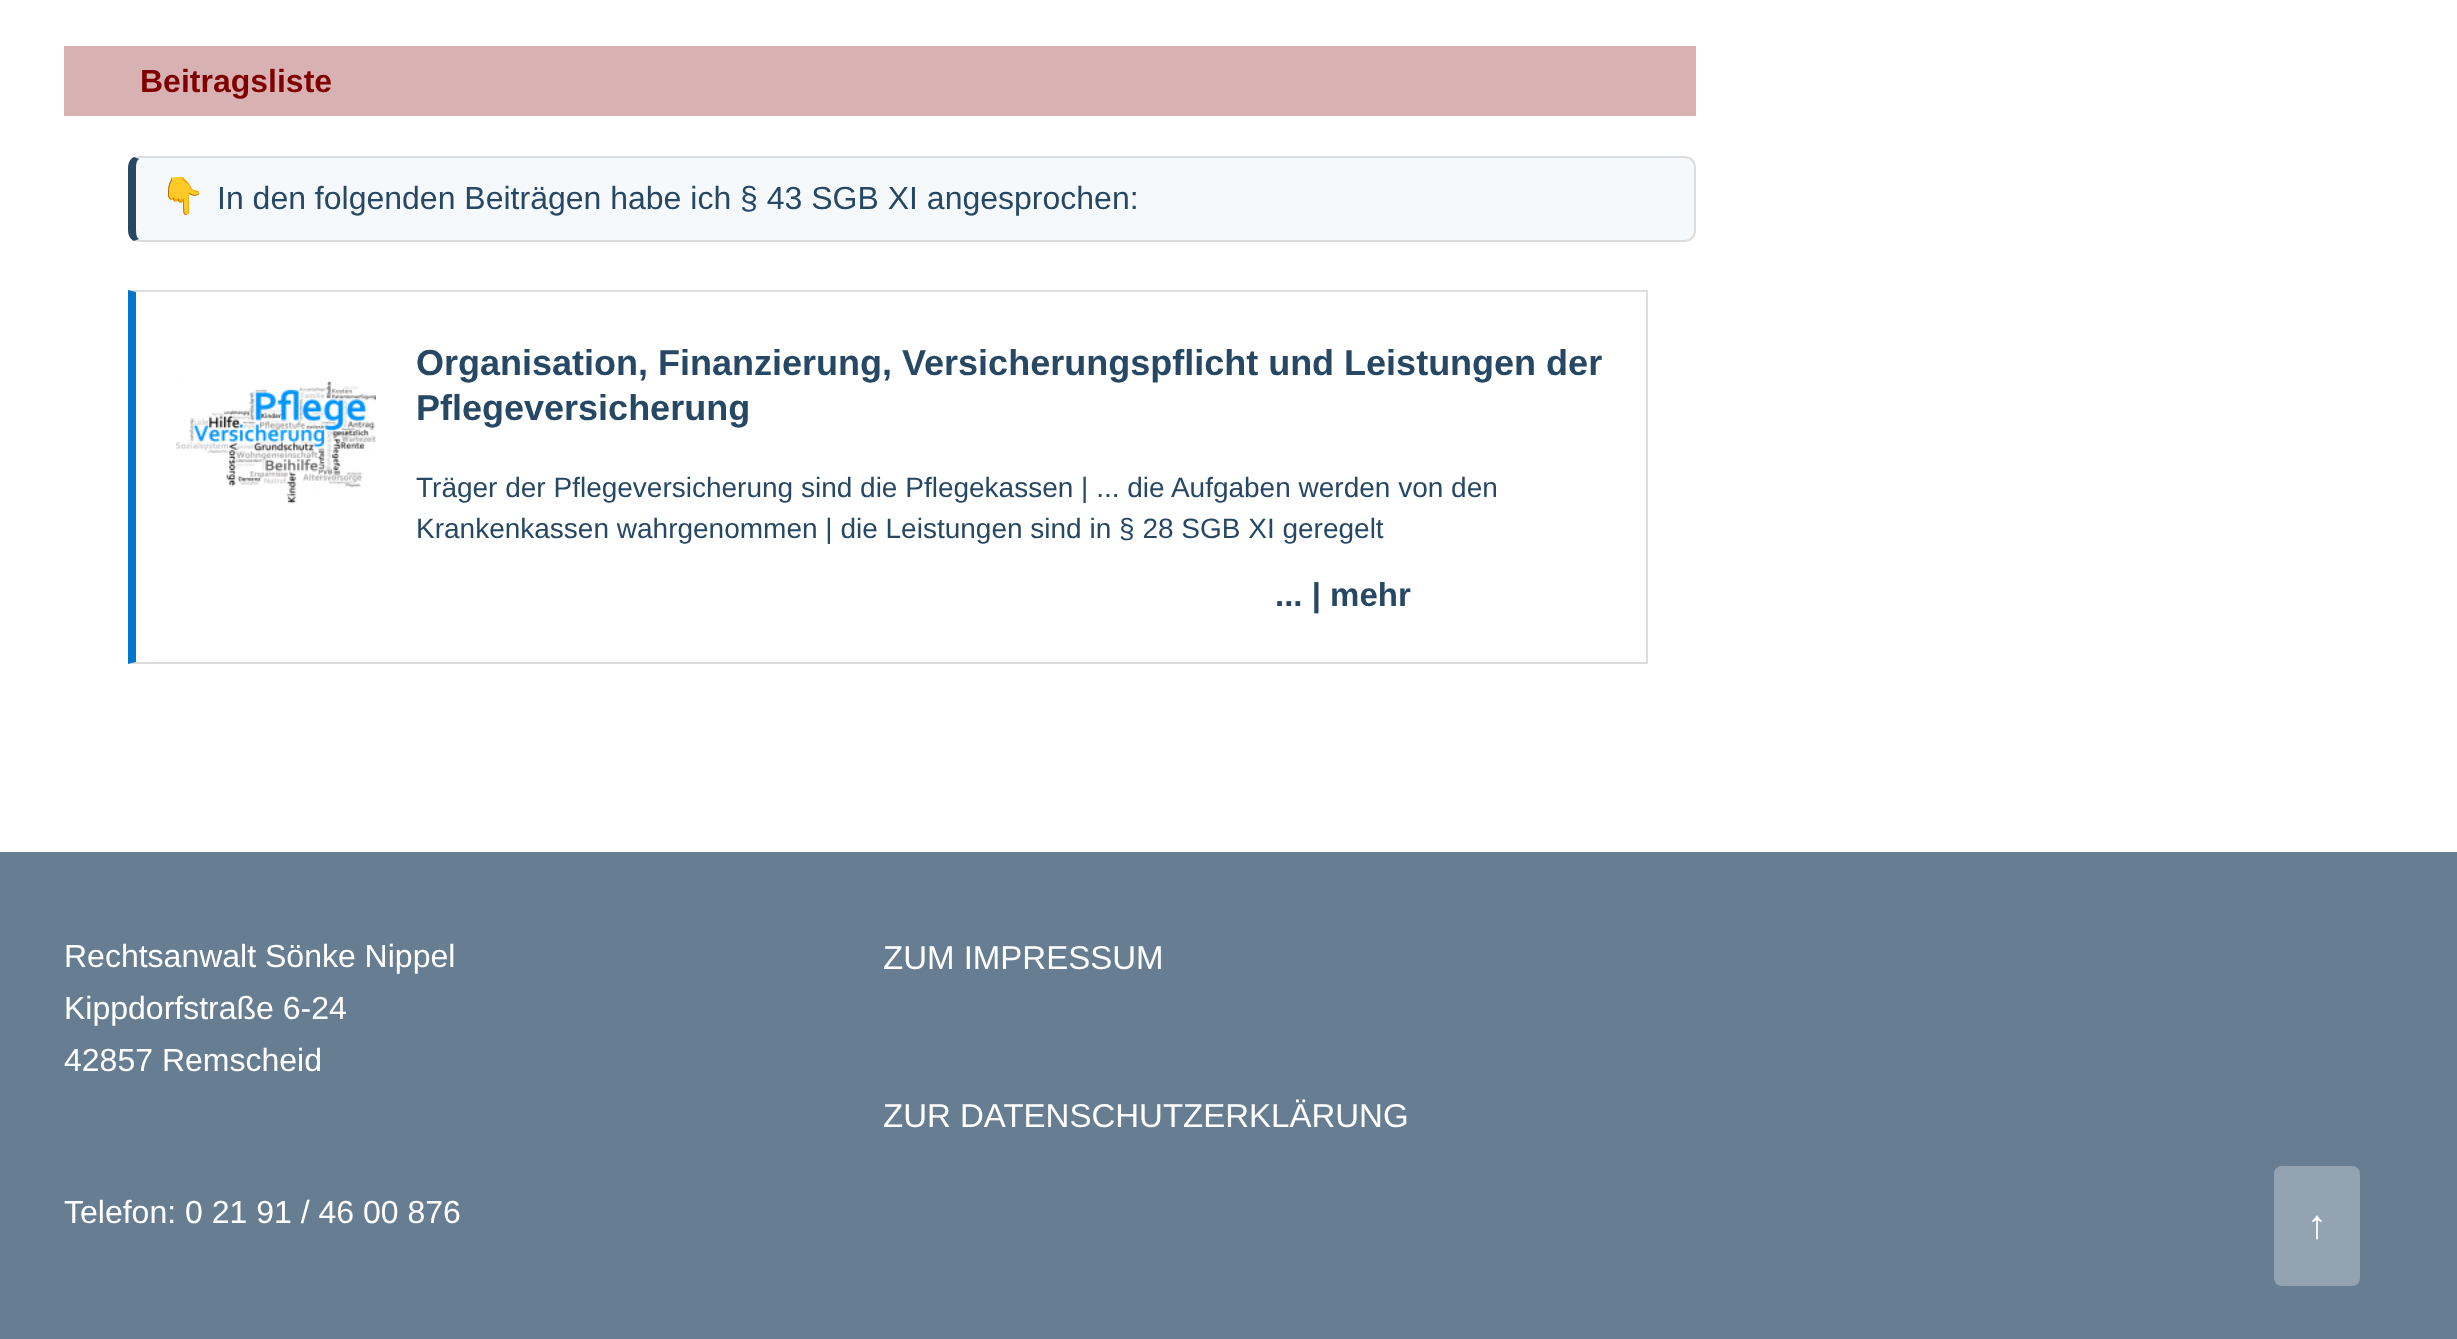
<svg xmlns="http://www.w3.org/2000/svg" width="2457" height="1339" viewBox="0 0 2457 1339">
  <rect width="100%" height="100%" fill="rgb(255,255,255)"/>
  <rect x="64" y="46" width="1632" height="70" fill="rgb(216,178,178)"/>
  <text x="140" y="92" font-family="Liberation Sans" font-size="32" font-weight="bold" fill="rgb(128,0,0)">Beitragsliste</text>
  <path d="M140 158H1684C1690 158 1694 162 1694 168V230C1694 236 1690 240 1684 240H140C138 240 136 236 136 230V168C136 162 138 158 140 158Z" fill="rgb(246,249,252)"/>
  <path d="M140 156C138 156 136 157 134 157L139 159L140 158H1684C1687 158 1690 159 1691 161L1693 159C1690 157 1688 156 1684 156Z" fill="rgb(221,221,221)"/>
  <path d="M1696 230V168C1696 164 1695 162 1693 159L1691 161C1693 162 1694 165 1694 168V230C1694 233 1693 236 1691 237L1693 239C1695 236 1696 234 1696 230Z" fill="rgb(221,221,221)"/>
  <path d="M140 242H1684C1688 242 1690 241 1693 239L1691 237C1690 239 1687 240 1684 240H140L139 239L134 241C136 241 138 242 140 242Z" fill="rgb(221,221,221)"/>
  <path d="M128 168V230C128 235 130 239 134 241L139 239C137 238 136 235 136 230V168C136 163 137 160 139 159L134 157C130 159 128 163 128 168Z" fill="rgb(39,72,100)"/>
  <text x="160" y="208" font-family="Noto Color Emoji" font-size="36" fill="rgb(39,72,100)">👇</text>
  <text x="217" y="209" font-family="Liberation Sans" font-size="32" fill="rgb(39,72,100)">In den folgenden Beiträgen habe ich § 43 SGB XI angesprochen:</text>
  <path d="M128 290H1648L1646 292H136Z" fill="rgb(221,221,221)"/>
  <rect x="1646" y="290" width="2" height="374" fill="rgb(221,221,221)"/>
  <path d="M1648 664H128L136 662H1646Z" fill="rgb(221,221,221)"/>
  <path d="M128 664V290L136 292V662Z" fill="rgb(0,119,204)"/>
  <image x="176" y="381" width="200" height="123" href="pic1.png"/>
  <g font-family="Liberation Sans" font-size="36" font-weight="bold" fill="rgb(39,72,100)">
    <text>
      <tspan x="416" y="375">Organisation, Finanzierung, Versicherungspflicht und Leistungen der</tspan>
      <tspan x="416" y="420">Pflegeversicherung</tspan>
    </text>
  </g>
  <g font-family="Liberation Sans" font-size="28" fill="rgb(39,72,100)">
    <text>
      <tspan x="416" y="497">Träger der Pflegeversicherung sind die Pflegekassen | ... die Aufgaben werden von den</tspan>
      <tspan x="416" y="538">Krankenkassen wahrgenommen | die Leistungen sind in § 28 SGB XI geregelt</tspan>
    </text>
  </g>
  <text x="1275" y="606" font-family="Liberation Sans" font-size="33" font-weight="bold" fill="rgb(39,72,100)">... | mehr</text>
  <rect x="0" y="852" width="2457" height="487" fill="rgb(103,126,146)"/>
  <g font-family="Liberation Sans" font-size="32" fill="rgb(255,255,255)">
    <text>
      <tspan x="64" y="967">Rechtsanwalt Sönke Nippel</tspan>
      <tspan x="64" y="1019">Kippdorfstraße 6-24</tspan>
      <tspan x="64" y="1071">42857 Remscheid</tspan>
    </text>
    <text x="64" y="1223">Telefon: 0 21 91 / 46 00 876</text>
  </g>
  <g font-family="Liberation Sans" font-size="33" fill="rgb(255,255,255)">
    <text x="883" y="969">ZUM IMPRESSUM</text>
    <text x="883" y="1127">ZUR DATENSCHUTZERKLÄRUNG</text>
  </g>
  <rect x="2274" y="1166" width="86" height="120" rx="8" fill="rgb(147,163,177)"/>
  <text x="2307" y="1238" font-family="Liberation Sans" font-size="40" fill="rgb(255,255,255)">↑</text>
</svg>
